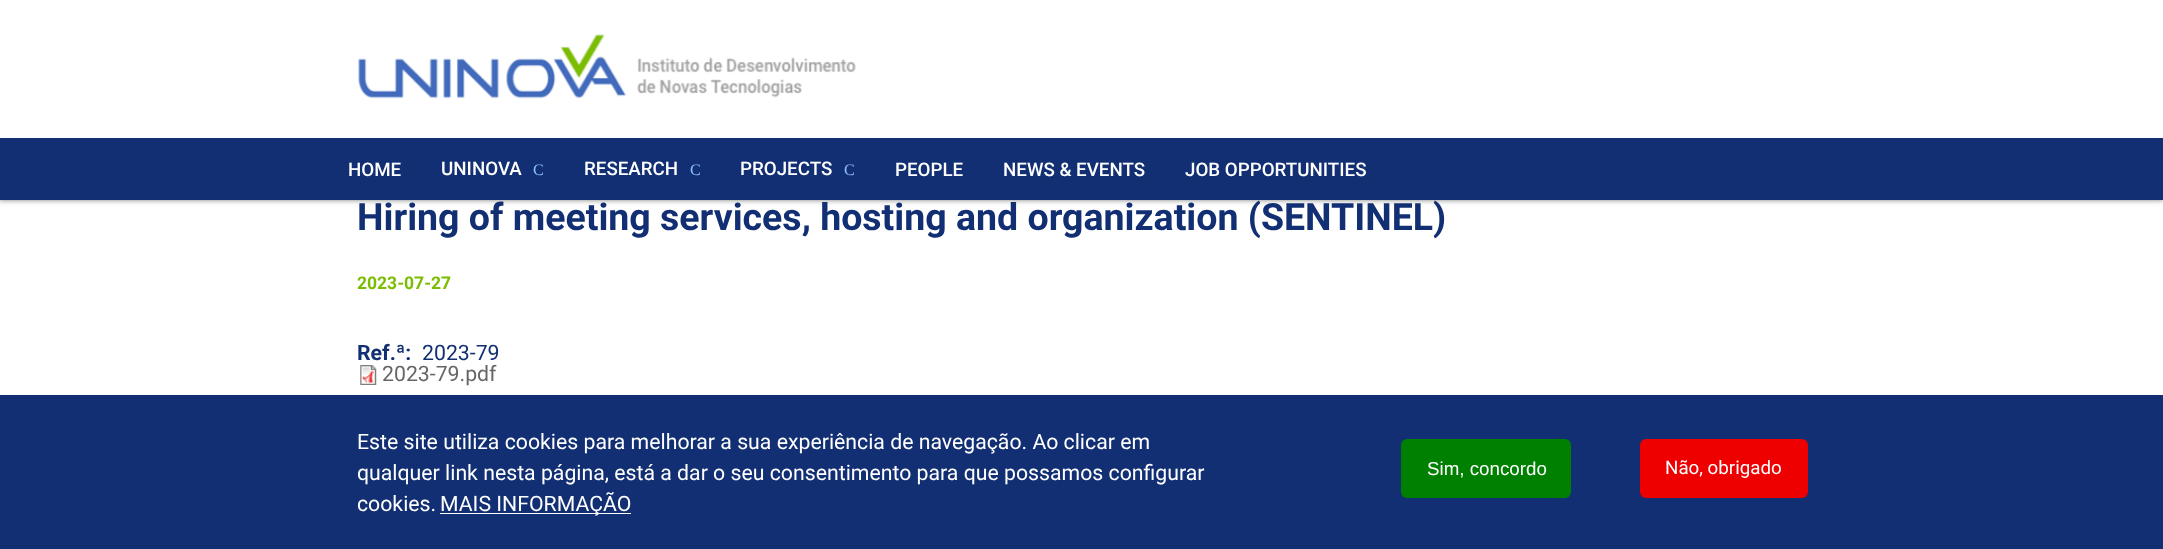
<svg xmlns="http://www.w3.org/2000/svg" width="2163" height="549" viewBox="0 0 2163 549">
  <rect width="100%" height="100%" fill="rgb(255,255,255)"/>
  <rect x="-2" y="-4" width="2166" height="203" fill="rgb(77,79,79)" filter="blur(3px)"/>
  <rect x="0" y="138" width="2163" height="62" fill="rgb(17,47,114)"/>
  <rect x="0" y="0" width="2163" height="138" fill="rgb(255,255,255)"/>
  <image x="358" y="34" width="498" height="65" href="pic1.png"/>
  <g font-family="Roboto" font-size="18.75" font-weight="500" fill="rgb(255,255,255)">
    <text x="348" y="176">HOME</text>
    <text x="441" y="175">UNINOVA</text>
  </g>
  <text x="533" y="175" font-family="Liberation Serif" font-size="16" fill="rgb(142,191,255)">C</text>
  <text x="584" y="175" font-family="Roboto" font-size="18.75" font-weight="500" fill="rgb(255,255,255)">RESEARCH</text>
  <text x="690" y="175" font-family="Liberation Serif" font-size="16" fill="rgb(142,191,255)">C</text>
  <text x="740" y="175" font-family="Roboto" font-size="18.75" font-weight="500" fill="rgb(255,255,255)">PROJECTS</text>
  <text x="844" y="175" font-family="Liberation Serif" font-size="16" fill="rgb(142,191,255)">C</text>
  <g font-family="Roboto" font-size="18.75" font-weight="500" fill="rgb(255,255,255)">
    <text x="895" y="176">PEOPLE</text>
    <text x="1003" y="176">NEWS &amp; EVENTS</text>
    <text x="1185" y="176">JOB OPPORTUNITIES</text>
  </g>
  <text x="357" y="230" font-family="Roboto" font-size="37.5" font-weight="bold" fill="rgb(17,47,114)">Hiring of meeting services, hosting and organization (SENTINEL)</text>
  <text x="357" y="289" font-family="Roboto" font-size="17.5" font-weight="bold" fill="rgb(123,189,3)">2023-07-27</text>
  <text x="357" y="360" font-family="Roboto" font-size="21.25" font-weight="bold" fill="rgb(17,47,114)">Ref.ª:</text>
  <text x="422" y="360" font-family="Roboto" font-size="21.25" fill="rgb(17,47,114)">2023-79</text>
  <image x="360" y="365" width="17" height="20" href="pic2.png"/>
  <text x="382" y="381" font-family="Roboto" font-size="21.25" fill="rgb(102,102,102)">2023-79.pdf</text>
  <rect x="0" y="395" width="2163" height="154" fill="rgb(17,47,114)"/>
  <g font-family="Roboto" font-size="21.25" fill="rgb(255,255,255)">
    <text>
      <tspan x="357" y="449">Este site utiliza cookies para melhorar a sua experiência de navegação. Ao clicar em</tspan>
      <tspan x="357" y="480">qualquer link nesta página, está a dar o seu consentimento para que possamos configurar</tspan>
      <tspan x="357" y="511">cookies.</tspan>
    </text>
  </g>
  <rect x="440" y="513" width="191" height="1" fill="rgb(255,255,255)"/>
  <text x="440" y="511" font-family="Roboto" font-size="21.25" fill="rgb(255,255,255)">MAIS INFORMAÇÃO</text>
  <rect x="1401" y="439" width="170" height="59" rx="6" fill="rgb(0,128,0)"/>
  <text x="1427" y="475" font-family="Liberation Sans" font-size="18.75" fill="rgb(255,255,255)">Sim, concordo</text>
  <rect x="1640" y="439" width="168" height="59" rx="6" fill="rgb(238,0,0)"/>
  <text x="1665" y="474" font-family="Roboto" font-size="18.75" fill="rgb(255,255,255)">Não, obrigado</text>
</svg>
